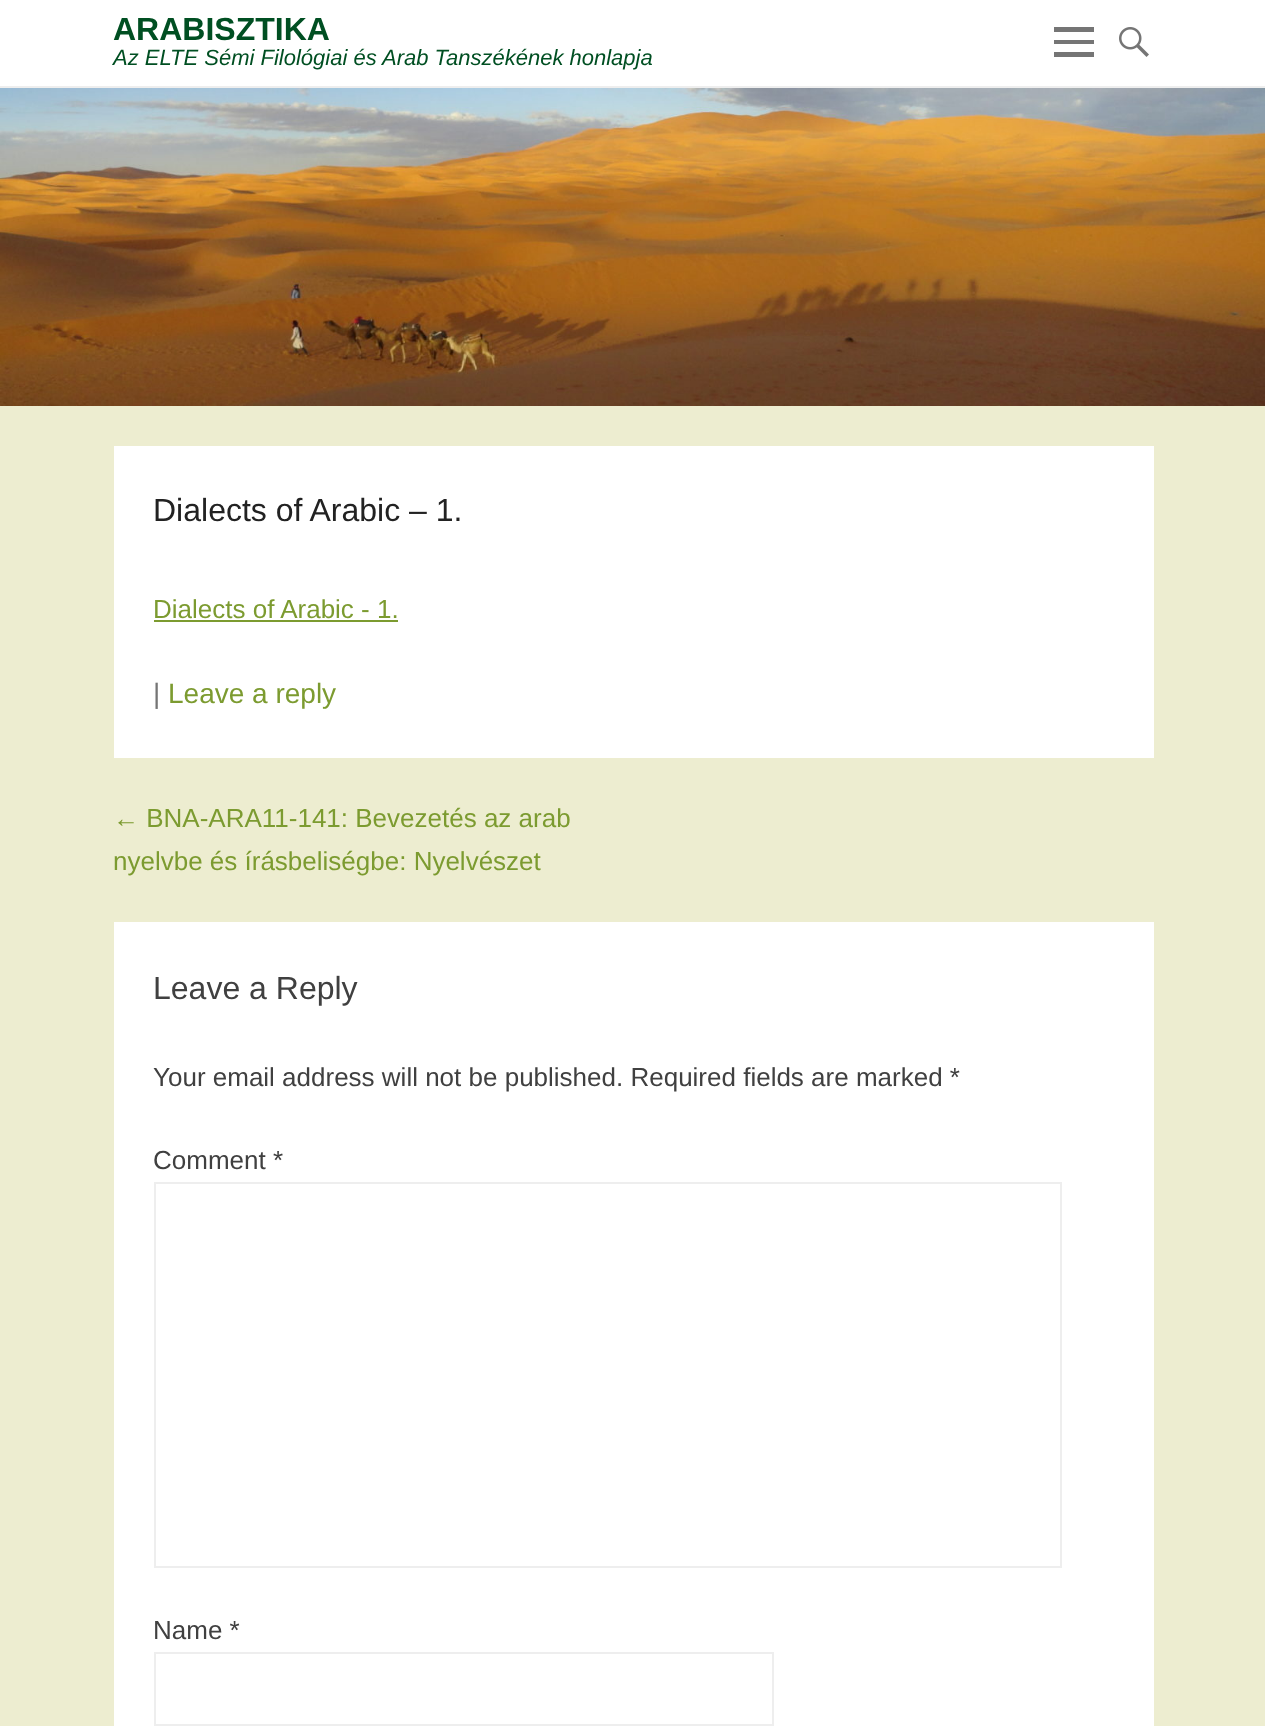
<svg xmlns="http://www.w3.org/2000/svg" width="1265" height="1726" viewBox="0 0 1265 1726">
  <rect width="100%" height="100%" fill="rgb(237,237,208)"/>
  <rect x="0" y="0" width="1265" height="86" fill="rgb(255,255,255)"/>
  <rect x="0" y="86" width="1265" height="2" fill="rgb(238,238,238)"/>
  <text x="113" y="40" font-family="Liberation Sans" font-size="32" font-weight="bold" fill="rgb(0,79,34)">ARABISZTIKA</text>
  <text x="113" y="65" font-family="Liberation Sans" font-size="22" font-style="italic" fill="rgb(0,79,34)">Az ELTE Sémi Filológiai és Arab Tanszékének honlapja</text>
  <path d="M1054 57V52H1094V57ZM1054 27H1094V32H1054ZM1054 44V40H1094V44Z" fill="rgb(117,117,117)"/>
  <image x="1119" y="27" width="30" height="30" href="pic1.png"/>
  <image x="0" y="88" width="1265" height="318" href="pic2.png"/>
  <rect x="114" y="446" width="1040" height="312" fill="rgb(255,255,255)"/>
  <text x="153" y="521" font-family="Liberation Sans" font-size="32" fill="rgb(34,34,34)">Dialects of Arabic – 1.</text>
  <text x="153" y="618" font-family="Liberation Sans" font-size="26" fill="rgb(124,155,48)">Dialects of Arabic - 1.</text>
  <rect x="154" y="620" width="244" height="2" fill="rgb(124,155,48)"/>
  <text x="153" y="703" font-family="Liberation Sans" font-size="28" fill="rgb(117,117,117)">|</text>
  <text x="168" y="703" font-family="Liberation Sans" font-size="28" fill="rgb(124,155,48)">Leave a reply</text>
  <g font-family="Liberation Sans" font-size="26" fill="rgb(124,155,48)">
    <text>
      <tspan x="113" y="827">← BNA-ARA11-141: Bevezetés az arab</tspan>
      <tspan x="113" y="870">nyelvbe és írásbeliségbe: Nyelvészet</tspan>
    </text>
  </g>
  <rect x="114" y="922" width="1040" height="804" fill="rgb(255,255,255)"/>
  <text x="153" y="999" font-family="Liberation Sans" font-size="32" fill="rgb(64,64,64)">Leave a Reply</text>
  <g font-family="Liberation Sans" font-size="26" fill="rgb(64,64,64)">
    <text x="153" y="1086">Your email address will not be published. Required fields are marked *</text>
    <text x="153" y="1169">Comment *</text>
  </g>
  <rect x="155" y="1183" width="906" height="384" fill="none" stroke="rgb(238,238,238)" stroke-width="2"/>
  <text x="153" y="1639" font-family="Liberation Sans" font-size="26" fill="rgb(64,64,64)">Name *</text>
  <rect x="155" y="1653" width="618" height="72" fill="none" stroke="rgb(238,238,238)" stroke-width="2"/>
</svg>
